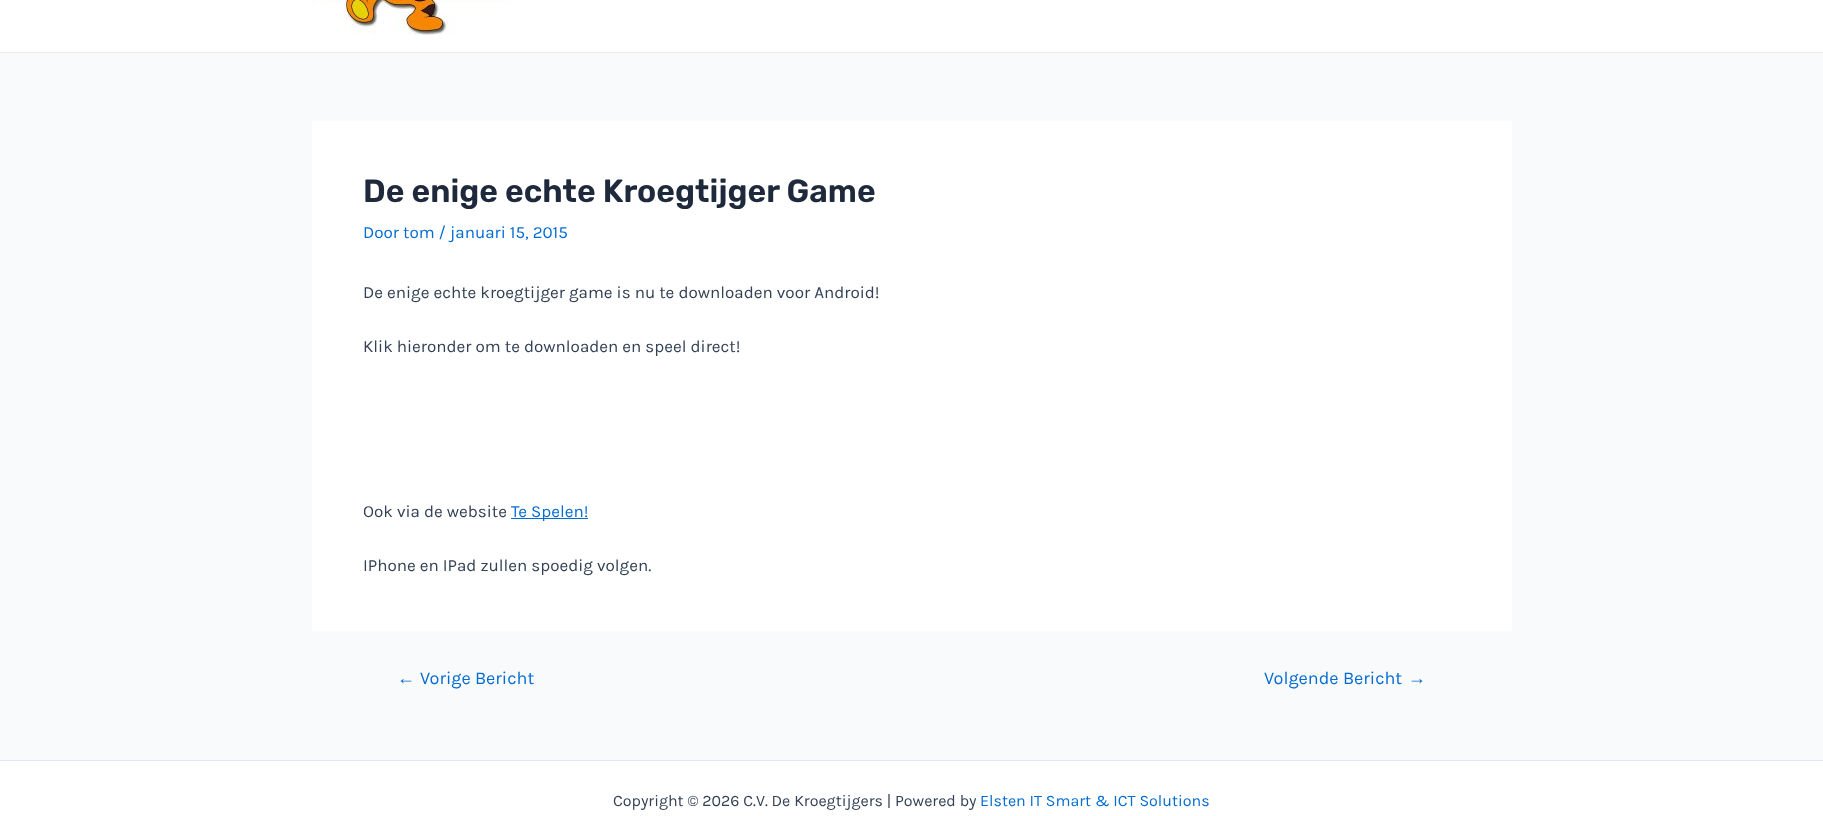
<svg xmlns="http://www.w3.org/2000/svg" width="1823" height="816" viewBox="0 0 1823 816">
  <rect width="100%" height="100%" fill="rgb(249,250,251)"/>
  <rect x="0" y="0" width="1823" height="52" fill="rgb(255,255,255)"/>
  <rect x="0" y="52" width="1823" height="1" fill="rgb(234,234,234)"/>
  <image x="312" y="0" width="200" height="35" href="pic1.png"/>
  <rect x="312" y="121" width="1200" height="510" fill="rgb(255,255,255)"/>
  <text x="363" y="202" font-family="Rubik" font-size="32" font-weight="600" fill="rgb(30,41,59)">De enige echte Kroegtijger Game</text>
  <text x="363" y="238" font-family="Karla" font-size="17" fill="rgb(4,107,210)">Door tom / januari 15, 2015</text>
  <g font-family="Karla" font-size="17" fill="rgb(51,65,85)">
    <text x="363" y="298">De enige echte kroegtijger game is nu te downloaden voor Android!</text>
    <text x="363" y="352">Klik hieronder om te downloaden en speel direct!</text>
    <text x="363" y="517">Ook via de website</text>
  </g>
  <rect x="511" y="518" width="77" height="1" fill="rgb(4,107,210)"/>
  <text x="511" y="517" font-family="Karla" font-size="17" fill="rgb(4,107,210)">Te Spelen!</text>
  <text x="363" y="571" font-family="Karla" font-size="17" fill="rgb(51,65,85)">IPhone en IPad zullen spoedig volgen.</text>
  <text x="397" y="684" font-family="Liberation Sans" font-size="18" fill="rgb(4,107,210)">←</text>
  <g font-family="Karla" font-size="18" fill="rgb(4,107,210)">
    <text x="420" y="684">Vorige Bericht</text>
    <text x="1264" y="684">Volgende Bericht</text>
  </g>
  <text x="1408" y="684" font-family="Liberation Sans" font-size="18" fill="rgb(4,107,210)">→</text>
  <rect x="0" y="761" width="1823" height="55" fill="rgb(255,255,255)"/>
  <rect x="0" y="760" width="1823" height="1" fill="rgb(226,232,240)"/>
  <text x="613" y="806" font-family="Karla" font-size="16" fill="rgb(51,65,85)">Copyright © 2026 C.V. De Kroegtijgers | Powered by</text>
  <text x="980" y="806" font-family="Karla" font-size="16" fill="rgb(4,107,210)">Elsten IT Smart &amp; ICT Solutions</text>
</svg>
